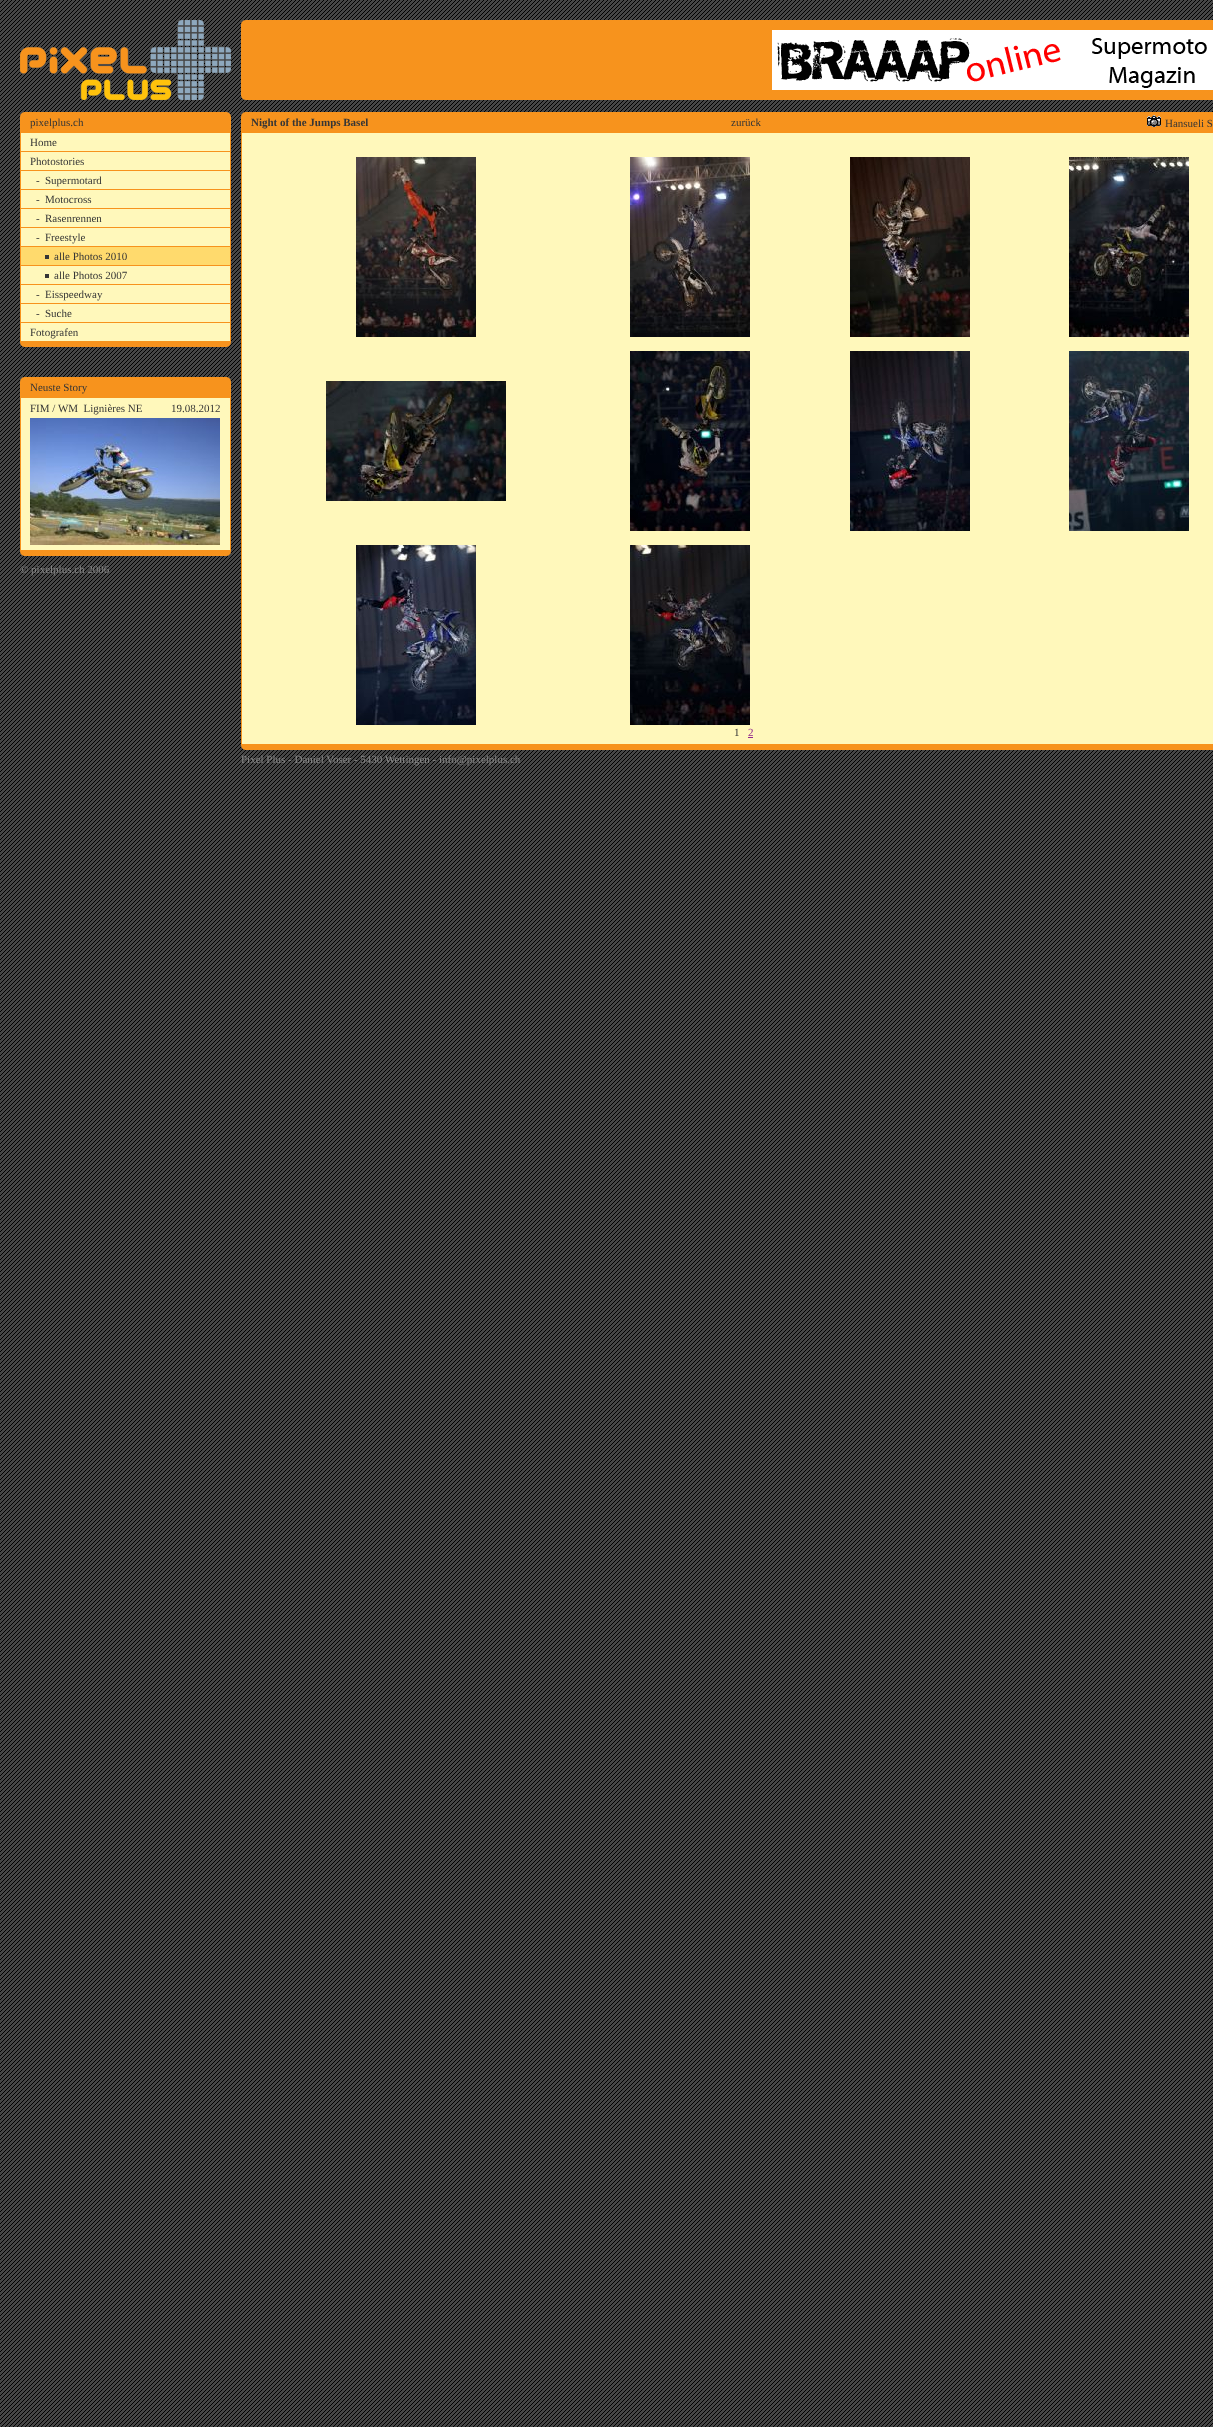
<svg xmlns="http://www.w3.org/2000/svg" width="1213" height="2427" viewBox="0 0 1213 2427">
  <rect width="100%" height="100%" fill="rgb(255,255,255)"/>
  <image x="0" y="0" width="1213" height="2427" href="pic1.png"/>
  <image x="20" y="20" width="211" height="80" href="pic2.png"/>
  <image x="241" y="20" width="10" height="80" href="pic3.png"/>
  <rect x="251" y="20" width="962" height="80" fill="rgb(247,147,29)"/>
  <image x="772" y="30" width="441" height="60" href="pic4.png"/>
  <image x="20" y="112" width="211" height="20" href="pic5.png"/>
  <text x="30" y="126" font-family="Liberation Serif" font-size="11" fill="rgb(54,54,54)">pixelplus.ch</text>
  <rect x="20" y="132" width="211" height="210" fill="rgb(247,147,29)"/>
  <rect x="21" y="133" width="209" height="18" fill="rgb(255,248,187)"/>
  <text x="30" y="146" font-family="Liberation Serif" font-size="11" fill="rgb(54,54,54)">Home</text>
  <rect x="21" y="152" width="209" height="18" fill="rgb(255,248,187)"/>
  <text x="30" y="165" font-family="Liberation Serif" font-size="11" fill="rgb(54,54,54)">Photostories</text>
  <rect x="21" y="171" width="209" height="18" fill="rgb(255,248,187)"/>
  <g font-family="Liberation Serif" font-size="11" fill="rgb(54,54,54)">
    <text x="36" y="184">-</text>
    <text x="45" y="184">Supermotard</text>
  </g>
  <rect x="21" y="190" width="209" height="18" fill="rgb(255,248,187)"/>
  <g font-family="Liberation Serif" font-size="11" fill="rgb(54,54,54)">
    <text x="36" y="203">-</text>
    <text x="45" y="203">Motocross</text>
  </g>
  <rect x="21" y="209" width="209" height="18" fill="rgb(255,248,187)"/>
  <g font-family="Liberation Serif" font-size="11" fill="rgb(54,54,54)">
    <text x="36" y="222">-</text>
    <text x="45" y="222">Rasenrennen</text>
  </g>
  <rect x="21" y="228" width="209" height="18" fill="rgb(255,248,187)"/>
  <g font-family="Liberation Serif" font-size="11" fill="rgb(54,54,54)">
    <text x="36" y="241">-</text>
    <text x="45" y="241">Freestyle</text>
  </g>
  <rect x="21" y="247" width="209" height="18" fill="rgb(255,218,109)"/>
  <rect x="45" y="255" width="4" height="4" fill="rgb(54,54,54)"/>
  <text x="54" y="260" font-family="Liberation Serif" font-size="11" fill="rgb(54,54,54)">alle Photos 2010</text>
  <rect x="21" y="266" width="209" height="18" fill="rgb(255,248,187)"/>
  <rect x="45" y="274" width="4" height="4" fill="rgb(54,54,54)"/>
  <text x="54" y="279" font-family="Liberation Serif" font-size="11" fill="rgb(54,54,54)">alle Photos 2007</text>
  <rect x="21" y="285" width="209" height="18" fill="rgb(255,248,187)"/>
  <g font-family="Liberation Serif" font-size="11" fill="rgb(54,54,54)">
    <text x="36" y="298">-</text>
    <text x="45" y="298">Eisspeedway</text>
  </g>
  <rect x="21" y="304" width="209" height="18" fill="rgb(255,248,187)"/>
  <g font-family="Liberation Serif" font-size="11" fill="rgb(54,54,54)">
    <text x="36" y="317">-</text>
    <text x="45" y="317">Suche</text>
  </g>
  <rect x="21" y="323" width="209" height="18" fill="rgb(255,248,187)"/>
  <text x="30" y="336" font-family="Liberation Serif" font-size="11" fill="rgb(54,54,54)">Fotografen</text>
  <image x="20" y="342" width="211" height="5" href="pic6.png"/>
  <image x="20" y="377" width="211" height="20" href="pic7.png"/>
  <text x="30" y="391" font-family="Liberation Serif" font-size="11" fill="rgb(54,54,54)">Neuste Story</text>
  <rect x="20" y="397" width="211" height="154" fill="rgb(247,147,29)"/>
  <rect x="21" y="398" width="209" height="152" fill="rgb(255,248,187)"/>
  <g font-family="Liberation Serif" font-size="11" fill="rgb(54,54,54)">
    <text x="30" y="412" xml:space="preserve">FIM / WM  Lignières NE</text>
    <text x="171" y="412">19.08.2012</text>
  </g>
  <image x="30" y="418" width="190" height="127" href="pic8.png"/>
  <image x="20" y="551" width="211" height="5" href="pic9.png"/>
  <text x="20" y="573" font-family="Liberation Serif" font-size="11" fill="rgb(137,137,137)">© pixelplus.ch 2006</text>
  <image x="241" y="112" width="972" height="20" href="pic10.png"/>
  <text x="251" y="126" font-family="Liberation Serif" font-size="11" font-weight="bold" fill="rgb(54,54,54)">Night of the Jumps Basel</text>
  <text x="731" y="126" font-family="Liberation Serif" font-size="11" fill="rgb(54,54,54)">zurück</text>
  <image x="1147" y="115" width="14" height="12" href="pic11.png"/>
  <text x="1165" y="127" font-family="Liberation Serif" font-size="11" fill="rgb(54,54,54)">Hansueli S</text>
  <rect x="241" y="132" width="972" height="613" fill="rgb(247,147,29)"/>
  <rect x="242" y="133" width="971" height="611" fill="rgb(255,248,187)"/>
  <image x="356" y="157" width="120" height="180" href="pic12.png"/>
  <image x="630" y="157" width="120" height="180" href="pic13.png"/>
  <image x="850" y="157" width="120" height="180" href="pic14.png"/>
  <image x="1069" y="157" width="120" height="180" href="pic15.png"/>
  <image x="326" y="381" width="180" height="120" href="pic16.png"/>
  <image x="630" y="351" width="120" height="180" href="pic17.png"/>
  <image x="850" y="351" width="120" height="180" href="pic18.png"/>
  <image x="1069" y="351" width="120" height="180" href="pic19.png"/>
  <image x="356" y="545" width="120" height="180" href="pic20.png"/>
  <image x="630" y="545" width="120" height="180" href="pic21.png"/>
  <text x="734" y="736" font-family="Liberation Serif" font-size="11" fill="rgb(54,54,54)">1</text>
  <text x="748" y="736" font-family="Liberation Serif" font-size="11" fill="rgb(145,38,143)">2</text>
  <rect x="748" y="737" width="5" height="1" fill="rgb(145,38,143)"/>
  <image x="241" y="745" width="972" height="5" href="pic22.png"/>
  <text x="241" y="763" font-family="Liberation Serif" font-size="11" fill="rgb(137,137,137)">Pixel Plus - Daniel Voser - 5430 Wettingen - info@pixelplus.ch</text>
</svg>
